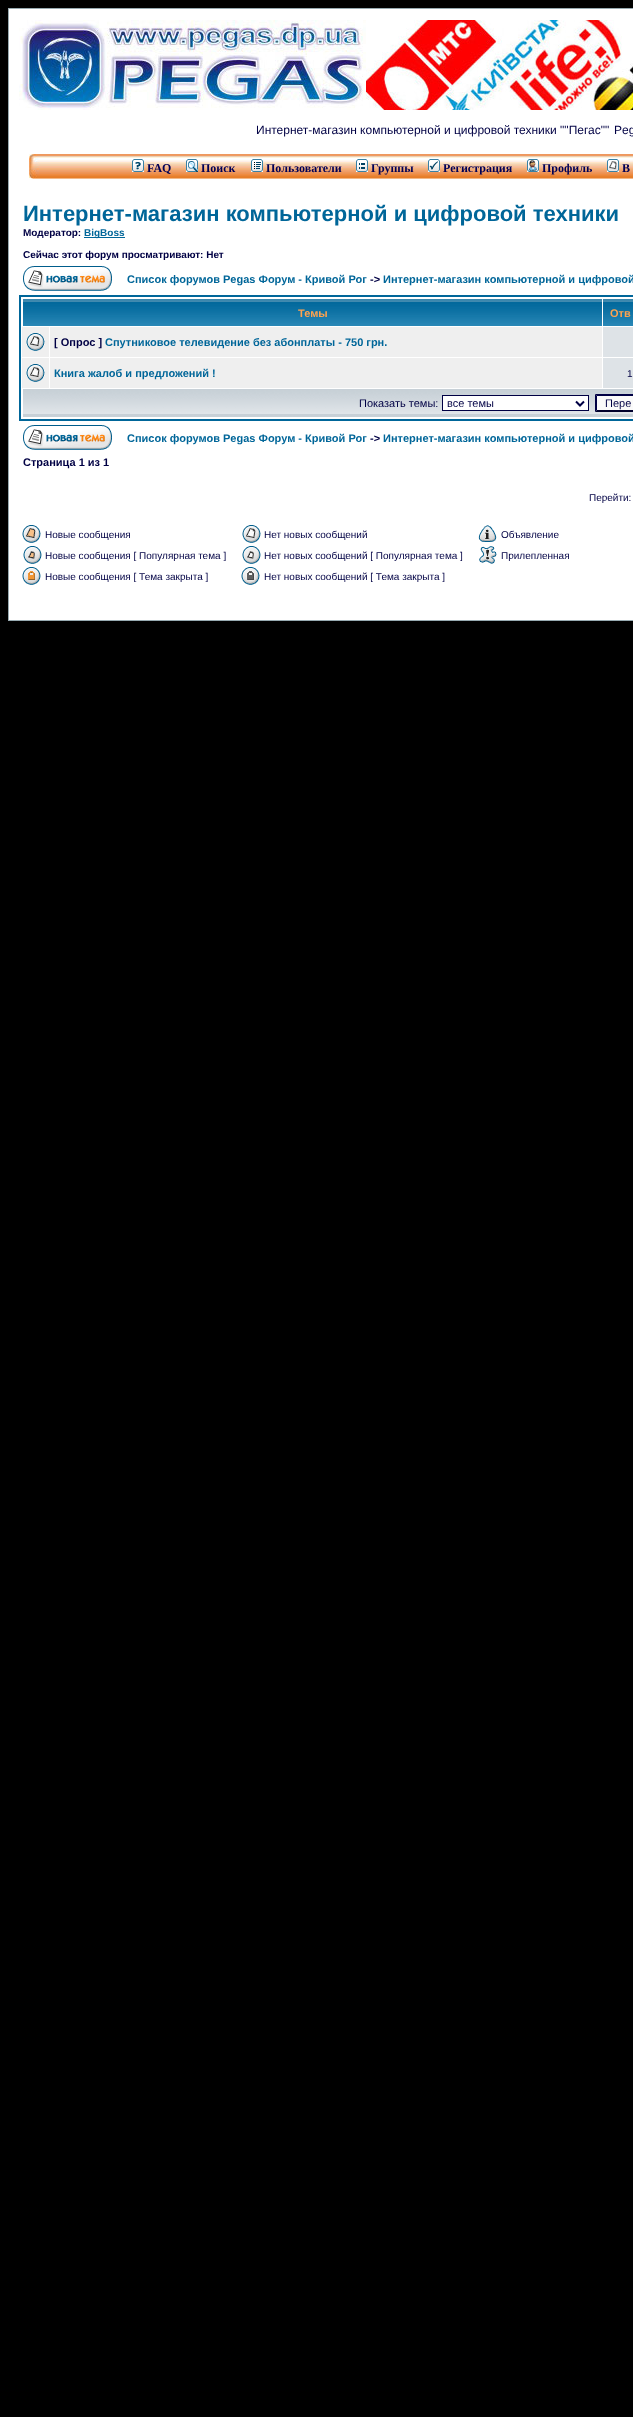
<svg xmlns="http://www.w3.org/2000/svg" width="633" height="2417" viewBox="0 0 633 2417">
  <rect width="100%" height="100%" fill="rgb(0,0,0)"/>
  <rect x="8.5" y="8.5" width="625" height="612" fill="rgb(255,255,255)" stroke="rgb(152,170,177)"/>
  <image x="19" y="20" width="347" height="90" href="pic1.png"/>
  <image x="366" y="20" width="267" height="90" href="pic2.png"/>
  <g font-family="Liberation Sans" font-size="12" fill="rgb(0,0,68)">
    <text x="256" y="134">Интернет-магазин компьютерной и цифровой техники ""Пегас""</text>
    <text x="614" y="134">Peg</text>
  </g>
  <image x="29" y="154" width="10" height="25" href="pic3.png"/>
  <image x="39" y="154" width="594" height="25" href="pic4.png"/>
  <image x="132" y="159" width="12" height="13" href="pic5.png"/>
  <text x="147" y="172" font-family="Liberation Serif" font-size="12" font-weight="bold" fill="rgb(0,0,85)">FAQ</text>
  <image x="186" y="159" width="12" height="13" href="pic6.png"/>
  <text x="201" y="172" font-family="Liberation Serif" font-size="12" font-weight="bold" fill="rgb(0,0,85)">Поиск</text>
  <image x="251" y="159" width="12" height="13" href="pic7.png"/>
  <text x="266" y="172" font-family="Liberation Serif" font-size="12" font-weight="bold" fill="rgb(0,0,85)">Пользователи</text>
  <image x="356" y="159" width="12" height="13" href="pic8.png"/>
  <text x="371" y="172" font-family="Liberation Serif" font-size="12" font-weight="bold" fill="rgb(0,0,85)">Группы</text>
  <image x="428" y="159" width="12" height="13" href="pic9.png"/>
  <text x="443" y="172" font-family="Liberation Serif" font-size="12" font-weight="bold" fill="rgb(0,0,85)">Регистрация</text>
  <image x="527" y="159" width="12" height="13" href="pic10.png"/>
  <text x="542" y="172" font-family="Liberation Serif" font-size="12" font-weight="bold" fill="rgb(0,0,85)">Профиль</text>
  <image x="607" y="159" width="12" height="13" href="pic11.png"/>
  <text x="622" y="172" font-family="Liberation Serif" font-size="12" font-weight="bold" fill="rgb(0,0,85)">В</text>
  <text x="23" y="221" font-family="Liberation Sans" font-size="22" font-weight="bold" fill="rgb(0,102,153)">Интернет-магазин компьютерной и цифровой техники</text>
  <text x="23" y="236" font-family="Liberation Sans" font-size="10" font-weight="bold" fill="rgb(0,0,68)">Модератор:</text>
  <rect x="84" y="237" width="41" height="1" fill="rgb(0,102,153)"/>
  <text x="84" y="236" font-family="Liberation Sans" font-size="10" font-weight="bold" fill="rgb(0,102,153)">BigBoss</text>
  <text x="23" y="258" font-family="Liberation Sans" font-size="10" font-weight="bold" fill="rgb(0,0,68)">Сейчас этот форум просматривают: Нет</text>
  <image x="23" y="266" width="89" height="25" href="pic12.png"/>
  <text x="127" y="283" font-family="Liberation Sans" font-size="11" font-weight="bold" fill="rgb(0,102,153)">Список форумов Pegas Форум - Кривой Рог</text>
  <text x="370" y="283" font-family="Liberation Sans" font-size="11" font-weight="bold" fill="rgb(0,0,68)">-&gt;</text>
  <text x="383" y="283" font-family="Liberation Sans" font-size="11" font-weight="bold" fill="rgb(0,102,153)">Интернет-магазин компьютерной и цифровой</text>
  <rect x="20" y="296" width="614" height="124" fill="none" stroke="rgb(0,102,153)" stroke-width="2"/>
  <image x="23" y="299" width="579" height="27" href="pic13.png"/>
  <text x="298" y="317" font-family="Liberation Sans" font-size="11" font-weight="bold" fill="rgb(255,163,79)">Темы</text>
  <image x="603" y="299" width="30" height="27" href="pic14.png"/>
  <text x="610" y="317" font-family="Liberation Sans" font-size="11" font-weight="bold" fill="rgb(255,163,79)">Отв</text>
  <rect x="22" y="327" width="27" height="30" fill="rgb(239,239,239)"/>
  <image x="26" y="333" width="19" height="18" href="pic15.png"/>
  <rect x="50" y="327" width="552" height="30" fill="rgb(239,239,239)"/>
  <text x="54" y="346" font-family="Liberation Sans" font-size="11" font-weight="bold" fill="rgb(0,0,68)">[ Опрос ]</text>
  <text x="105" y="346" font-family="Liberation Sans" font-size="11" font-weight="bold" fill="rgb(0,102,153)">Спутниковое телевидение без абонплаты - 750 грн.</text>
  <rect x="603" y="327" width="30" height="30" fill="rgb(222,227,231)"/>
  <rect x="22" y="358" width="27" height="30" fill="rgb(239,239,239)"/>
  <image x="26" y="364" width="19" height="18" href="pic15.png"/>
  <rect x="50" y="358" width="552" height="30" fill="rgb(239,239,239)"/>
  <text x="54" y="377" font-family="Liberation Sans" font-size="11" font-weight="bold" fill="rgb(0,102,153)">Книга жалоб и предложений !</text>
  <rect x="603" y="358" width="30" height="30" fill="rgb(222,227,231)"/>
  <text x="627" y="377" font-family="Liberation Sans" font-size="10" fill="rgb(0,0,68)">1</text>
  <image x="23" y="389" width="610" height="28" href="pic16.png"/>
  <text x="359" y="407" font-family="Liberation Sans" font-size="11" fill="rgb(0,0,68)">Показать темы:</text>
  <rect x="442.5" y="395.5" width="146" height="15" fill="rgb(255,255,255)" stroke="rgb(0,0,68)"/>
  <path d="M576 401.5L580 405.5L584 401.5" fill="none" stroke="rgb(0,0,68)" stroke-width="2"/>
  <text x="447" y="407" font-family="Liberation Sans" font-size="11" fill="rgb(0,0,68)">все темы</text>
  <rect x="595" y="394" width="38" height="18" fill="rgb(250,250,250)"/>
  <path d="M595 394H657L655 396H597Z" fill="rgb(0,0,68)"/>
  <path d="M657 412H595L597 410H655Z" fill="rgb(0,0,45)"/>
  <path d="M595 412V394L597 396V410Z" fill="rgb(0,0,68)"/>
  <text x="605" y="407" font-family="Liberation Sans" font-size="11" fill="rgb(0,0,68)">Пере</text>
  <image x="23" y="425" width="89" height="25" href="pic12.png"/>
  <text x="127" y="442" font-family="Liberation Sans" font-size="11" font-weight="bold" fill="rgb(0,102,153)">Список форумов Pegas Форум - Кривой Рог</text>
  <text x="370" y="442" font-family="Liberation Sans" font-size="11" font-weight="bold" fill="rgb(0,0,68)">-&gt;</text>
  <text x="383" y="442" font-family="Liberation Sans" font-size="11" font-weight="bold" fill="rgb(0,102,153)">Интернет-магазин компьютерной и цифровой</text>
  <text x="23" y="466" font-family="Liberation Sans" font-size="11" font-weight="bold" fill="rgb(0,0,68)">Страница 1 из 1</text>
  <text x="589" y="501" font-family="Liberation Sans" font-size="10" fill="rgb(0,0,68)">Перейти:</text>
  <image x="22" y="525" width="19" height="18" href="pic17.png"/>
  <text x="45" y="538" font-family="Liberation Sans" font-size="10" fill="rgb(0,0,68)">Новые сообщения</text>
  <image x="242" y="525" width="19" height="18" href="pic18.png"/>
  <text x="264" y="538" font-family="Liberation Sans" font-size="10" fill="rgb(0,0,68)">Нет новых сообщений</text>
  <image x="478" y="525" width="19" height="17" href="pic19.png"/>
  <text x="501" y="538" font-family="Liberation Sans" font-size="10" fill="rgb(0,0,68)">Объявление</text>
  <image x="23" y="546" width="19" height="18" href="pic20.png"/>
  <text x="45" y="559" font-family="Liberation Sans" font-size="10" fill="rgb(0,0,68)">Новые сообщения [ Популярная тема ]</text>
  <image x="242" y="546" width="19" height="18" href="pic21.png"/>
  <text x="264" y="559" font-family="Liberation Sans" font-size="10" fill="rgb(0,0,68)">Нет новых сообщений [ Популярная тема ]</text>
  <image x="479" y="546" width="18" height="18" href="pic22.png"/>
  <text x="501" y="559" font-family="Liberation Sans" font-size="10" fill="rgb(0,0,68)">Прилепленная</text>
  <image x="22" y="567" width="19" height="18" href="pic23.png"/>
  <text x="45" y="580" font-family="Liberation Sans" font-size="10" fill="rgb(0,0,68)">Новые сообщения [ Тема закрыта ]</text>
  <image x="241" y="567" width="19" height="18" href="pic24.png"/>
  <text x="264" y="580" font-family="Liberation Sans" font-size="10" fill="rgb(0,0,68)">Нет новых сообщений [ Тема закрыта ]</text>
</svg>
